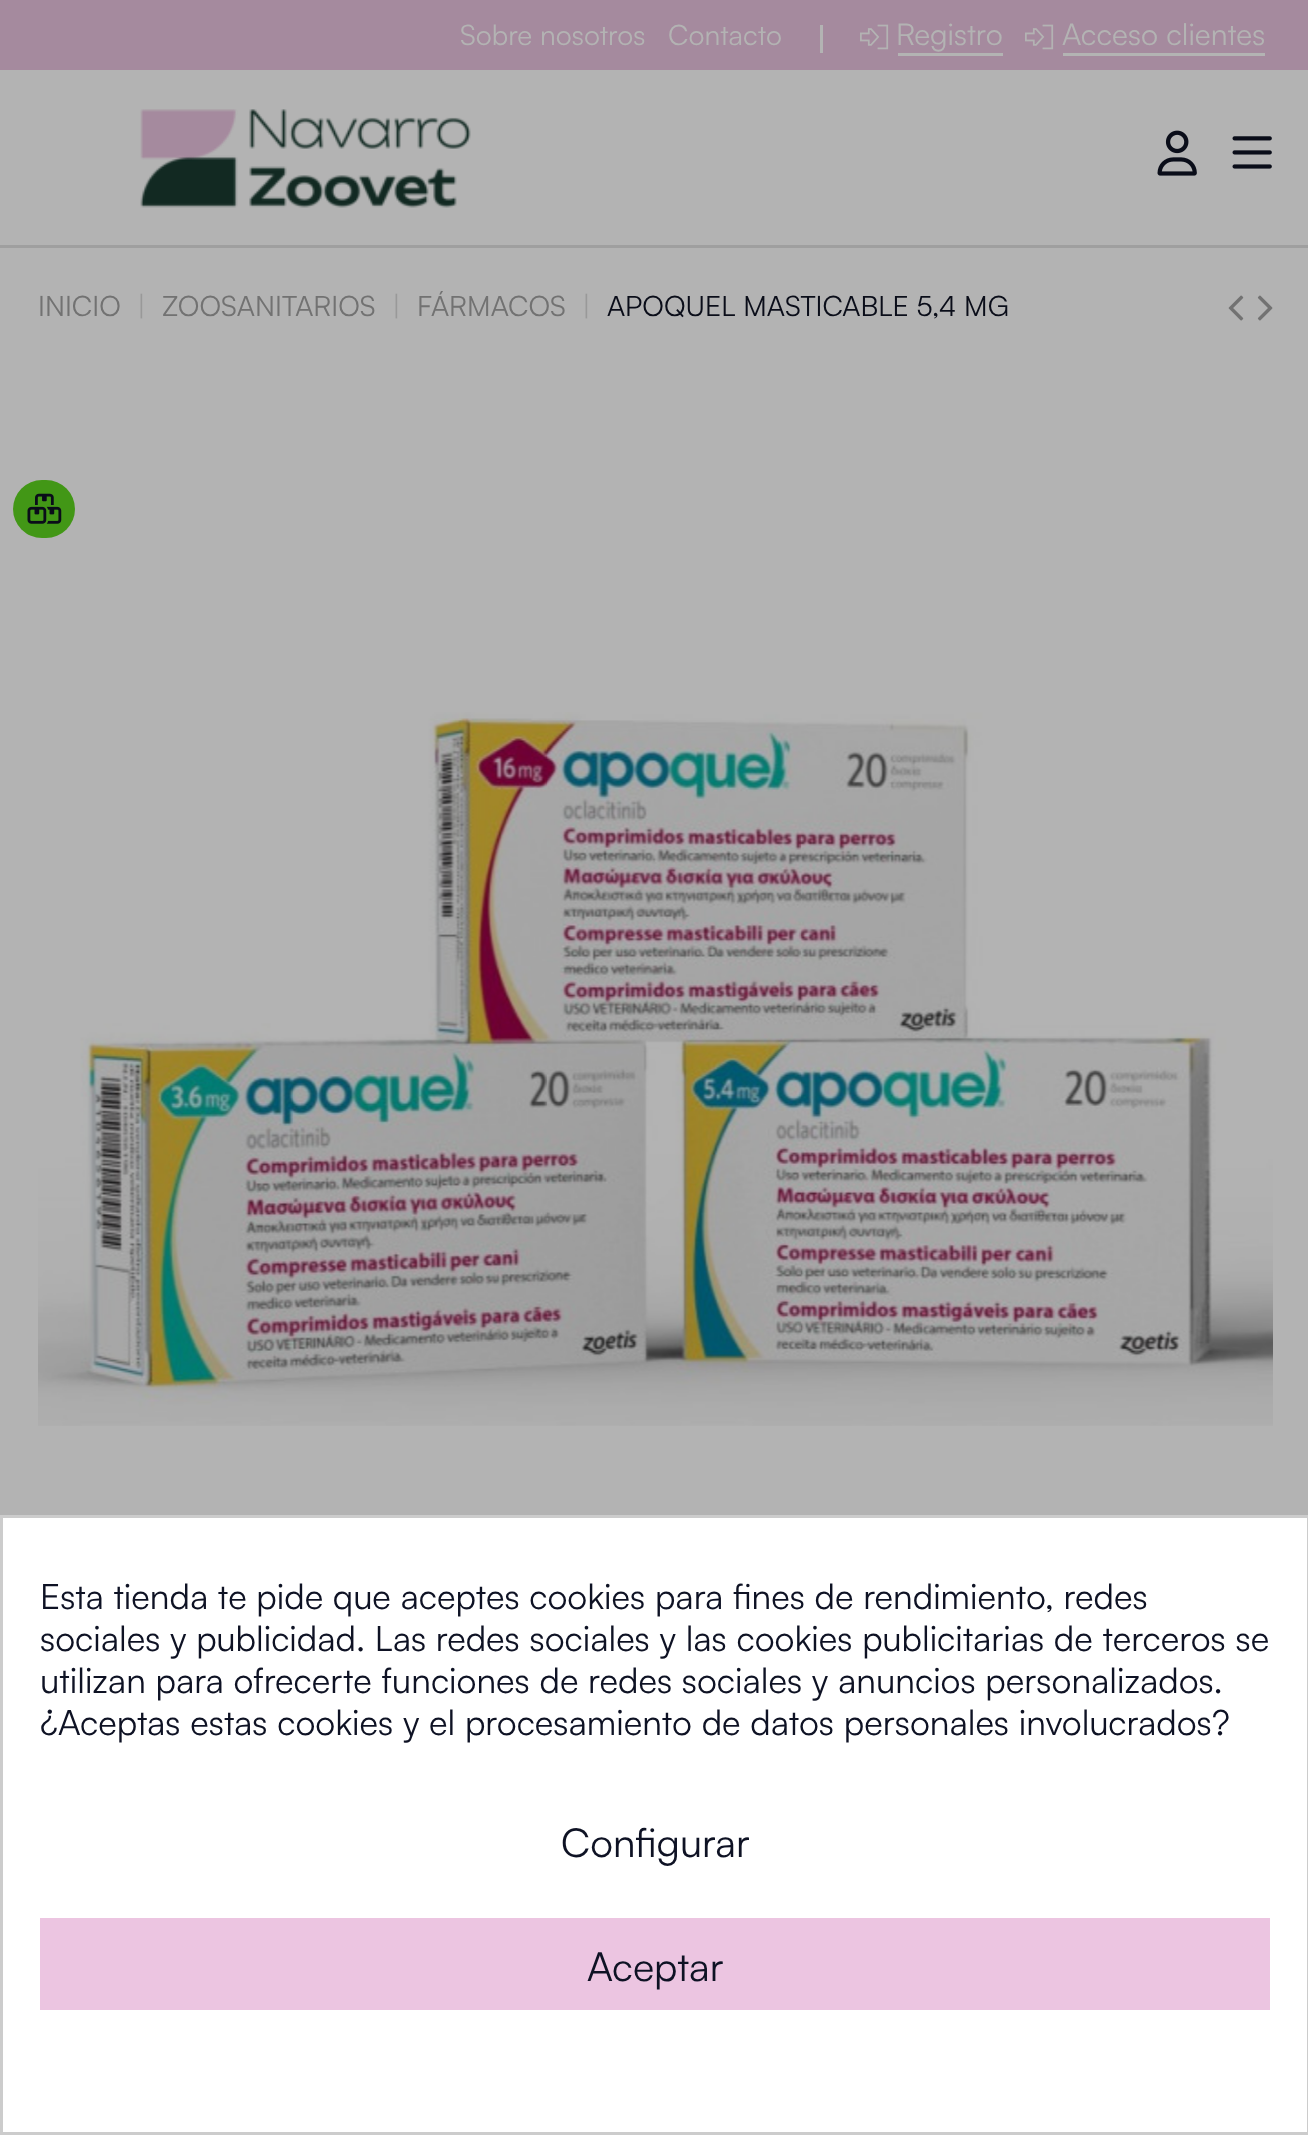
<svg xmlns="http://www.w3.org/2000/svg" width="1308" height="2135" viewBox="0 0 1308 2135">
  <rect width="100%" height="100%" fill="rgb(179,179,179)"/>
  <rect x="0" y="0" width="1308" height="70" fill="rgb(165,138,158)"/>
  <g font-family="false" font-size="28.1" fill="rgb(179,179,179)">
    <text x="460" y="45">Sobre nosotros</text>
    <text x="668" y="45">Contacto</text>
  </g>
  <rect x="820" y="25" width="3" height="28" fill="rgb(179,179,179)"/>
  <image x="860" y="24" width="29" height="26" href="pic1.png"/>
  <text x="896" y="45" font-family="false" font-size="30" fill="rgb(179,179,179)">Registro</text>
  <rect x="898" y="53" width="105" height="3" fill="rgb(179,179,179)"/>
  <image x="1025" y="24" width="29" height="26" href="pic1.png"/>
  <text x="1062" y="45" font-family="false" font-size="30" fill="rgb(179,179,179)">Acceso clientes</text>
  <rect x="1063" y="53" width="202" height="3" fill="rgb(179,179,179)"/>
  <rect x="0" y="245" width="1308" height="3" fill="rgb(159,159,159)"/>
  <image x="140" y="109" width="331" height="99" href="pic2.png"/>
  <image x="1157" y="130" width="40" height="46" href="pic3.png"/>
  <image x="1232" y="136" width="40" height="33" href="pic4.png"/>
  <text x="38" y="316" font-family="false" font-size="28.1" fill="rgb(114,114,114)">INICIO</text>
  <text x="137" y="316" font-family="false" font-size="28.1" fill="rgb(153,153,153)">|</text>
  <text x="162" y="316" font-family="false" font-size="28.1" fill="rgb(114,114,114)">ZOOSANITARIOS</text>
  <text x="392" y="316" font-family="false" font-size="28.1" fill="rgb(153,153,153)">|</text>
  <text x="417" y="316" font-family="false" font-size="28.1" fill="rgb(114,114,114)">FÁRMACOS</text>
  <text x="582" y="316" font-family="false" font-size="28.1" fill="rgb(153,153,153)">|</text>
  <text x="607" y="316" font-family="false" font-size="28.1" fill="rgb(10,13,25)">APOQUEL MASTICABLE 5,4 MG</text>
  <image x="1228" y="295" width="16" height="26" href="pic5.png"/>
  <image x="1257" y="295" width="16" height="26" href="pic6.png"/>
  <rect x="13" y="480" width="62" height="58" rx="29" fill="rgb(66,151,22)"/>
  <image x="27" y="493" width="35" height="31" href="pic7.png"/>
  <image x="38" y="712" width="1235" height="714" href="pic8.png"/>
  <rect x="1.5" y="1516.5" width="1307" height="617" fill="rgb(255,255,255)" stroke="rgb(204,204,204)" stroke-width="3"/>
  <g font-family="false" font-size="35" fill="rgb(14,18,36)">
    <text>
      <tspan x="40" y="1609">Esta tienda te pide que aceptes cookies para fines de rendimiento, redes</tspan>
      <tspan x="40" y="1651">sociales y publicidad. Las redes sociales y las cookies publicitarias de terceros se</tspan>
      <tspan x="40" y="1693">utilizan para ofrecerte funciones de redes sociales y anuncios personalizados.</tspan>
      <tspan x="40" y="1735">¿Aceptas estas cookies y el procesamiento de datos personales involucrados?</tspan>
    </text>
  </g>
  <text x="561" y="1857" font-family="false" font-size="40" fill="rgb(14,18,36)">Configurar</text>
  <rect x="40" y="1918" width="1230" height="92" fill="rgb(236,197,225)"/>
  <text x="587" y="1981" font-family="false" font-size="40" fill="rgb(14,18,36)">Aceptar</text>
</svg>
